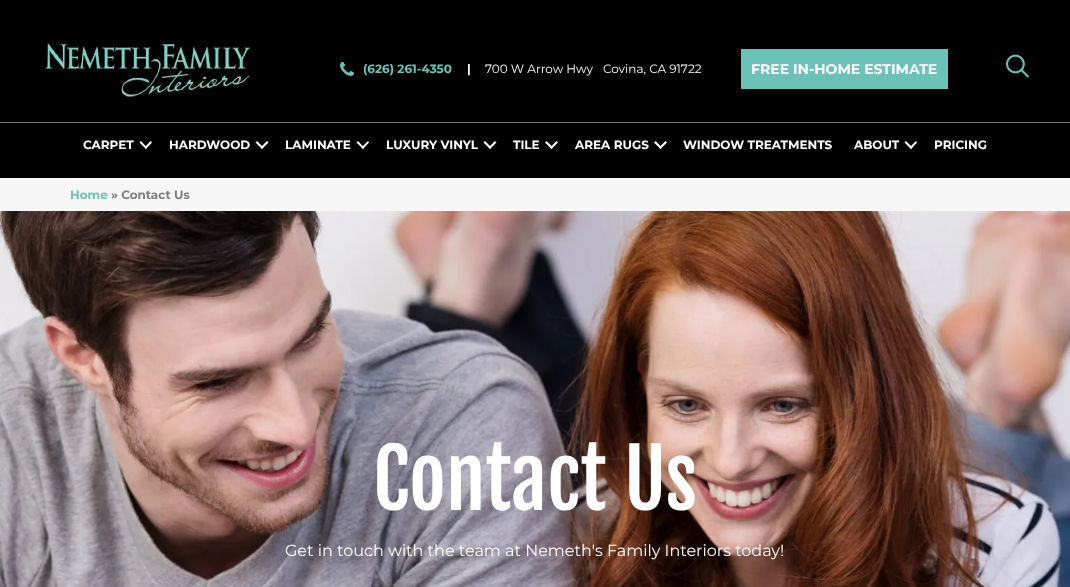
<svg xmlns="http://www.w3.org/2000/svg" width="1070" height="587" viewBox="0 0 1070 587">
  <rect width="100%" height="100%" fill="rgb(247,247,247)"/>
  <rect x="0" y="0" width="1070" height="122" fill="rgb(0,0,0)"/>
  <image x="45" y="42" width="206" height="56" href="pic1.png"/>
  <image x="340" y="61" width="15" height="15" href="pic2.png"/>
  <text x="363" y="73" font-family="Montserrat" font-size="12" font-weight="bold" fill="rgb(108,194,185)">(626) 261-4350</text>
  <text x="467" y="73" font-family="Montserrat" font-size="12" font-weight="bold" fill="rgb(255,255,255)">|</text>
  <g font-family="Montserrat" font-size="12" fill="rgb(255,255,255)">
    <text x="485" y="73">700 W Arrow Hwy</text>
    <text x="603" y="73">Covina, CA 91722</text>
  </g>
  <rect x="741" y="49" width="207" height="40" fill="rgb(108,194,185)"/>
  <text x="751" y="74" font-family="Montserrat" font-size="14" font-weight="bold" fill="rgb(255,255,255)">FREE IN-HOME ESTIMATE</text>
  <image x="1006" y="54" width="23" height="24" href="pic3.png"/>
  <rect x="0" y="123" width="1070" height="55" fill="rgb(0,0,0)"/>
  <rect x="0" y="122" width="1070" height="1" fill="rgb(126,126,126)"/>
  <text x="83" y="149" font-family="Montserrat" font-size="12" font-weight="bold" fill="rgb(255,255,255)">CARPET</text>
  <path d="M150.5 141L152 142.5L146 149L144.5 147.5Z" fill="rgb(255,255,255)"/>
  <path d="M141 141L147 147.5L146 149L139.5 142.5Z" fill="rgb(255,255,255)"/>
  <text x="169" y="149" font-family="Montserrat" font-size="12" font-weight="bold" fill="rgb(255,255,255)">HARDWOOD</text>
  <path d="M267 141L268.5 142.5L262 149L260.5 147.5Z" fill="rgb(255,255,255)"/>
  <path d="M257 141L263.5 147.5L262 149L255.5 142.5Z" fill="rgb(255,255,255)"/>
  <text x="285" y="149" font-family="Montserrat" font-size="12" font-weight="bold" fill="rgb(255,255,255)">LAMINATE</text>
  <path d="M368 141L369 142.5L363 149L361.5 147.5Z" fill="rgb(255,255,255)"/>
  <path d="M358 141L364 147.5L363 149L356.5 142.5Z" fill="rgb(255,255,255)"/>
  <text x="386" y="149" font-family="Montserrat" font-size="12" font-weight="bold" fill="rgb(255,255,255)">LUXURY VINYL</text>
  <path d="M495 141L496.5 142.5L490 149L488.5 147.5Z" fill="rgb(255,255,255)"/>
  <path d="M485 141L491.5 147.5L490 149L483.5 142.5Z" fill="rgb(255,255,255)"/>
  <text x="513" y="149" font-family="Montserrat" font-size="12" font-weight="bold" fill="rgb(255,255,255)">TILE</text>
  <path d="M556.5 141L558 142.5L551.5 149L550 147.5Z" fill="rgb(255,255,255)"/>
  <path d="M546.5 141L553 147.5L551.5 149L545 142.5Z" fill="rgb(255,255,255)"/>
  <text x="575" y="149" font-family="Montserrat" font-size="12" font-weight="bold" fill="rgb(255,255,255)">AREA RUGS</text>
  <path d="M665.5 141L667 142.5L660.5 149L659 147.5Z" fill="rgb(255,255,255)"/>
  <path d="M655.5 141L662 147.5L660.5 149L654 142.5Z" fill="rgb(255,255,255)"/>
  <g font-family="Montserrat" font-size="12" font-weight="bold" fill="rgb(255,255,255)">
    <text x="683" y="149">WINDOW TREATMENTS</text>
    <text x="854" y="149">ABOUT</text>
  </g>
  <path d="M916 141L917 142.5L911 149L909.5 147.5Z" fill="rgb(255,255,255)"/>
  <path d="M906 141L912.5 147.5L911 149L904.5 142.5Z" fill="rgb(255,255,255)"/>
  <text x="934" y="149" font-family="Montserrat" font-size="12" font-weight="bold" fill="rgb(255,255,255)">PRICING</text>
  <text x="70" y="199" font-family="Montserrat" font-size="12" font-weight="bold" fill="rgb(108,194,185)">Home</text>
  <text x="111" y="199" font-family="Montserrat" font-size="12" font-weight="bold" fill="rgb(126,126,126)">» Contact Us</text>
  <image x="0" y="211" width="1070" height="376" href="pic4.png"/>
  <text x="373" y="510" font-family="Fjalla One" font-size="80" fill="rgb(255,255,255)">Contact Us</text>
  <text x="285" y="556" font-family="Montserrat" font-size="16" fill="rgb(255,255,255)">Get in touch with the team at Nemeth's Family Interiors today!</text>
</svg>
